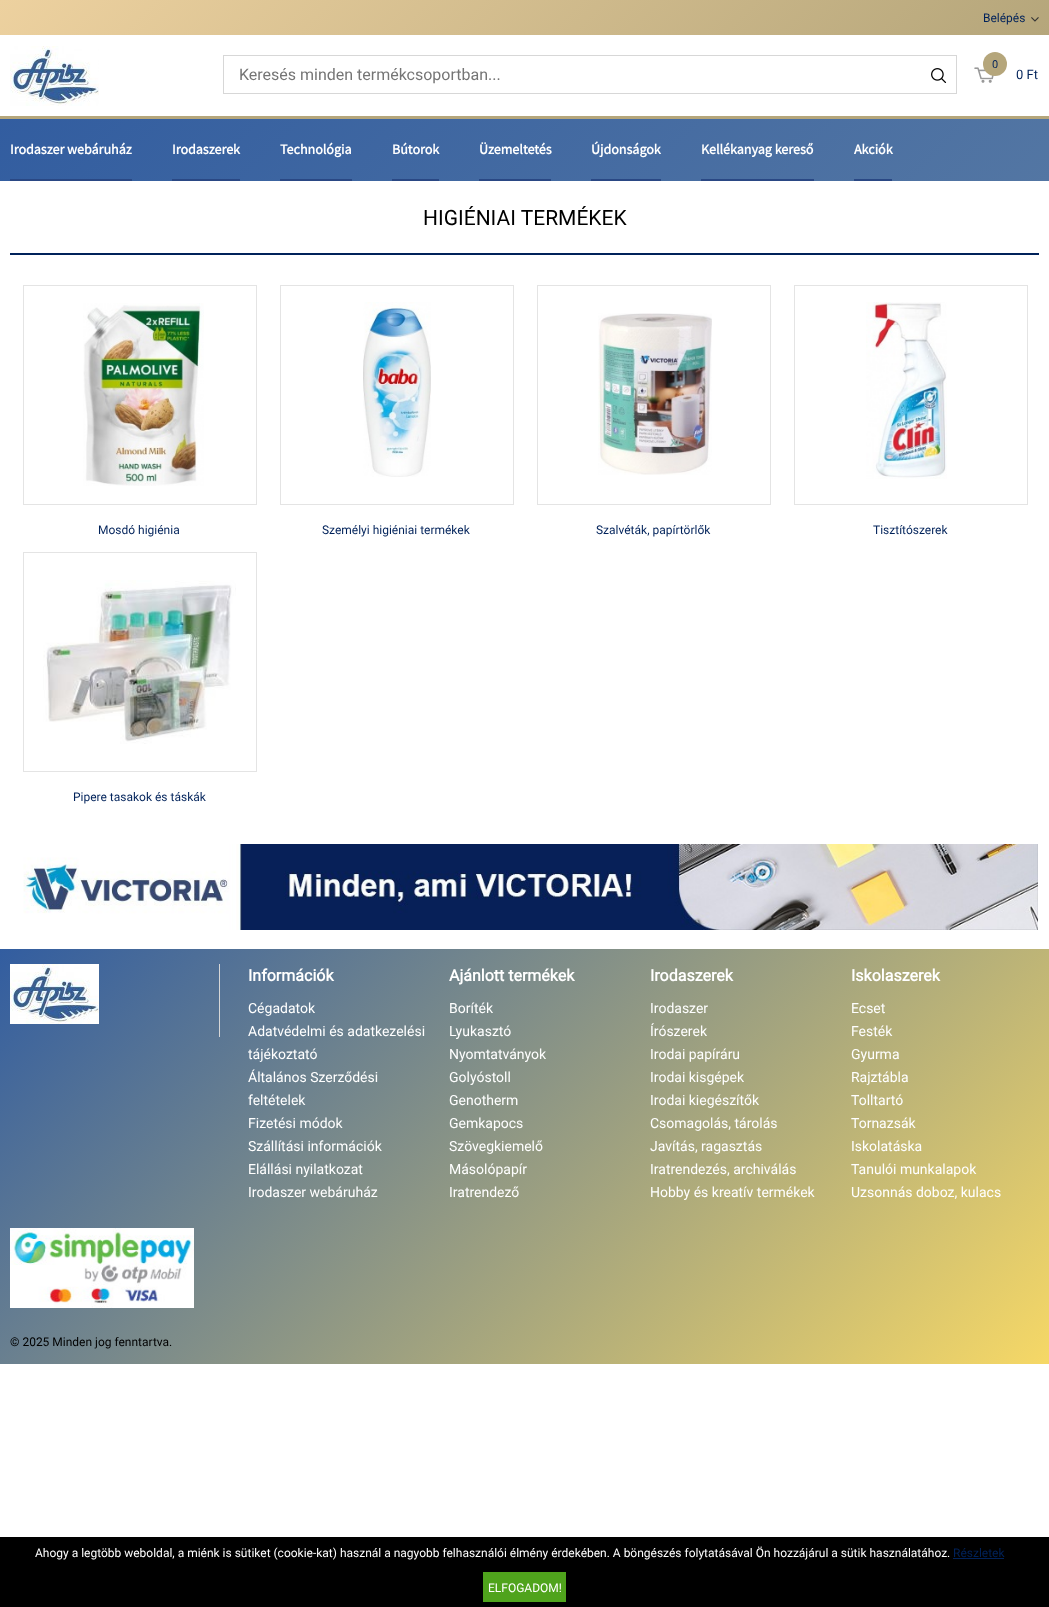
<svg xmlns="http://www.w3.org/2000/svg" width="1049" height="1607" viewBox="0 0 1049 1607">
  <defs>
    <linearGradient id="g1" gradientUnits="userSpaceOnUse" x1="253" y1="-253" x2="796" y2="289"><stop offset="0" stop-color="rgb(237,209,159)"/><stop offset="1" stop-color="rgb(181,166,123)"/></linearGradient>
    <linearGradient id="g2" gradientUnits="userSpaceOnUse" x1="247" y1="-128" x2="802" y2="428"><stop offset="0" stop-color="rgb(50,93,160)"/><stop offset="1" stop-color="rgb(83,118,163)"/></linearGradient>
    <linearGradient id="g3" gradientUnits="userSpaceOnUse" x1="158" y1="791" x2="891" y2="1523"><stop offset="0" stop-color="rgb(50,93,160)"/><stop offset="1" stop-color="rgb(246,216,102)"/></linearGradient>
  </defs>
  <rect width="100%" height="100%" fill="rgb(255,255,255)"/>
  <rect x="0" y="0" width="1049" height="35" fill="url(#g1)"/>
  <text x="983" y="22" font-family="Roboto" font-size="12" fill="rgb(0,34,90)">Belépés</text>
  <image x="1031" y="17" width="8" height="5" href="pic1.png"/>
  <rect x="0" y="116" width="1049" height="3" fill="rgb(181,166,123)"/>
  <image x="10" y="46" width="89" height="60" href="pic2.png"/>
  <rect x="223.5" y="55.5" width="733" height="38" fill="none" stroke="rgb(215,215,215)"/>
  <text x="239" y="80" font-family="Roboto" font-size="16" fill="rgb(117,117,117)">Keresés minden termékcsoportban...</text>
  <image x="931" y="68" width="16" height="15" href="pic3.png"/>
  <image x="974" y="67" width="20" height="16" href="pic4.png"/>
  <circle cx="995" cy="64" r="12" fill="rgb(181,166,123)"/>
  <text x="992" y="68" font-family="Roboto" font-size="11" fill="rgb(0,34,90)">0</text>
  <text x="1016" y="79" font-family="Roboto" font-size="13" fill="rgb(0,34,90)">0 Ft</text>
  <rect x="0" y="119" width="1049" height="62" fill="url(#g2)"/>
  <rect x="10" y="179" width="122" height="2" fill="rgb(42,72,132)"/>
  <text x="10" y="154" font-family="Source Sans Pro" font-size="14" font-weight="bold" fill="rgb(255,255,255)">Irodaszer webáruház</text>
  <rect x="172" y="179" width="68" height="2" fill="rgb(42,72,132)"/>
  <text x="172" y="154" font-family="Source Sans Pro" font-size="14" font-weight="bold" fill="rgb(255,255,255)">Irodaszerek</text>
  <rect x="280" y="179" width="72" height="2" fill="rgb(42,72,132)"/>
  <text x="280" y="154" font-family="Source Sans Pro" font-size="14" font-weight="bold" fill="rgb(255,255,255)">Technológia</text>
  <rect x="392" y="179" width="47" height="2" fill="rgb(42,72,132)"/>
  <text x="392" y="154" font-family="Source Sans Pro" font-size="14" font-weight="bold" fill="rgb(255,255,255)">Bútorok</text>
  <rect x="479" y="179" width="72" height="2" fill="rgb(42,72,132)"/>
  <text x="479" y="154" font-family="Source Sans Pro" font-size="14" font-weight="bold" fill="rgb(255,255,255)">Üzemeltetés</text>
  <rect x="591" y="179" width="70" height="2" fill="rgb(42,72,132)"/>
  <text x="591" y="154" font-family="Source Sans Pro" font-size="14" font-weight="bold" fill="rgb(255,255,255)">Újdonságok</text>
  <rect x="701" y="179" width="113" height="2" fill="rgb(42,72,132)"/>
  <text x="701" y="154" font-family="Source Sans Pro" font-size="14" font-weight="bold" fill="rgb(255,255,255)">Kellékanyag kereső</text>
  <rect x="854" y="179" width="38" height="2" fill="rgb(42,72,132)"/>
  <text x="854" y="154" font-family="Source Sans Pro" font-size="14" font-weight="bold" fill="rgb(255,255,255)">Akciók</text>
  <rect x="10" y="253" width="1029" height="2" fill="rgb(0,34,90)"/>
  <text x="423" y="225" font-family="Roboto" font-size="21" fill="rgb(0,0,0)">HIGIÉNIAI TERMÉKEK</text>
  <rect x="23.5" y="285.5" width="233" height="219" fill="none" stroke="rgb(228,228,228)"/>
  <image x="83" y="303" width="121" height="183" href="pic5.png"/>
  <text x="98" y="534" font-family="Roboto" font-size="12" fill="rgb(0,34,90)">Mosdó higiénia</text>
  <rect x="280.5" y="285.5" width="233" height="219" fill="none" stroke="rgb(228,228,228)"/>
  <image x="363" y="302" width="68" height="175" href="pic6.png"/>
  <text x="322" y="534" font-family="Roboto" font-size="12" fill="rgb(0,34,90)">Személyi higiéniai termékek</text>
  <rect x="537.5" y="285.5" width="233" height="219" fill="none" stroke="rgb(228,228,228)"/>
  <image x="598" y="313" width="114" height="162" href="pic7.png"/>
  <text x="596" y="534" font-family="Roboto" font-size="12" fill="rgb(0,34,90)">Szalvéták, papírtörlők</text>
  <rect x="794.5" y="285.5" width="233" height="219" fill="none" stroke="rgb(228,228,228)"/>
  <image x="866" y="302" width="81" height="177" href="pic8.png"/>
  <text x="873" y="534" font-family="Roboto" font-size="12" fill="rgb(0,34,90)">Tisztítószerek</text>
  <rect x="23.5" y="552.5" width="233" height="219" fill="none" stroke="rgb(228,228,228)"/>
  <image x="43" y="580" width="193" height="164" href="pic9.png"/>
  <text x="73" y="801" font-family="Roboto" font-size="12" fill="rgb(0,34,90)">Pipere tasakok és táskák</text>
  <image x="23" y="844" width="1015" height="86" href="pic10.png"/>
  <rect x="0" y="949" width="1049" height="415" fill="url(#g3)"/>
  <rect x="219" y="964" width="1" height="73" fill="rgb(215,215,215)"/>
  <image x="10" y="964" width="89" height="60" href="pic2.png"/>
  <text x="248" y="981" font-family="Roboto" font-size="16" font-weight="bold" fill="rgb(255,255,255)">Információk</text>
  <g font-family="Roboto" font-size="14" fill="rgb(255,255,255)">
    <text>
      <tspan x="248" y="1013">Cégadatok</tspan>
      <tspan x="248" y="1036">Adatvédelmi és adatkezelési</tspan>
      <tspan x="248" y="1059">tájékoztató</tspan>
      <tspan x="248" y="1082">Általános Szerződési</tspan>
      <tspan x="248" y="1105">feltételek</tspan>
      <tspan x="248" y="1128">Fizetési módok</tspan>
      <tspan x="248" y="1151">Szállítási információk</tspan>
      <tspan x="248" y="1174">Elállási nyilatkozat</tspan>
      <tspan x="248" y="1197">Irodaszer webáruház</tspan>
    </text>
  </g>
  <text x="449" y="981" font-family="Roboto" font-size="16" font-weight="bold" fill="rgb(255,255,255)">Ajánlott termékek</text>
  <g font-family="Roboto" font-size="14" fill="rgb(255,255,255)">
    <text>
      <tspan x="449" y="1013">Boríték</tspan>
      <tspan x="449" y="1036">Lyukasztó</tspan>
      <tspan x="449" y="1059">Nyomtatványok</tspan>
      <tspan x="449" y="1082">Golyóstoll</tspan>
      <tspan x="449" y="1105">Genotherm</tspan>
      <tspan x="449" y="1128">Gemkapocs</tspan>
      <tspan x="449" y="1151">Szövegkiemelő</tspan>
      <tspan x="449" y="1174">Másolópapír</tspan>
      <tspan x="449" y="1197">Iratrendező</tspan>
    </text>
  </g>
  <text x="650" y="981" font-family="Roboto" font-size="16" font-weight="bold" fill="rgb(255,255,255)">Irodaszerek</text>
  <g font-family="Roboto" font-size="14" fill="rgb(255,255,255)">
    <text>
      <tspan x="650" y="1013">Irodaszer</tspan>
      <tspan x="650" y="1036">Írószerek</tspan>
      <tspan x="650" y="1059">Irodai papíráru</tspan>
      <tspan x="650" y="1082">Irodai kisgépek</tspan>
      <tspan x="650" y="1105">Irodai kiegészítők</tspan>
      <tspan x="650" y="1128">Csomagolás, tárolás</tspan>
      <tspan x="650" y="1151">Javítás, ragasztás</tspan>
      <tspan x="650" y="1174">Iratrendezés, archiválás</tspan>
      <tspan x="650" y="1197">Hobby és kreatív termékek</tspan>
    </text>
  </g>
  <text x="851" y="981" font-family="Roboto" font-size="16" font-weight="bold" fill="rgb(255,255,255)">Iskolaszerek</text>
  <g font-family="Roboto" font-size="14" fill="rgb(255,255,255)">
    <text>
      <tspan x="851" y="1013">Ecset</tspan>
      <tspan x="851" y="1036">Festék</tspan>
      <tspan x="851" y="1059">Gyurma</tspan>
      <tspan x="851" y="1082">Rajztábla</tspan>
      <tspan x="851" y="1105">Tolltartó</tspan>
      <tspan x="851" y="1128">Tornazsák</tspan>
      <tspan x="851" y="1151">Iskolatáska</tspan>
      <tspan x="851" y="1174">Tanulói munkalapok</tspan>
      <tspan x="851" y="1197">Uzsonnás doboz, kulacs</tspan>
    </text>
  </g>
  <image x="10" y="1228" width="184" height="80" href="pic11.png"/>
  <text x="10" y="1346" font-family="Roboto" font-size="12" fill="rgb(0,0,0)">© 2025 Minden jog fenntartva.</text>
  <rect x="0" y="1537" width="1049" height="70" fill="rgb(0,0,0)"/>
  <text x="35" y="1557" font-family="Roboto" font-size="12" fill="rgb(255,255,255)">Ahogy a legtöbb weboldal, a miénk is sütiket (cookie-kat) használ a nagyobb felhasználói élmény érdekében. A böngészés folytatásával Ön hozzájárul a sütik használatához.</text>
  <text x="953" y="1557" font-family="Roboto" font-size="12" fill="rgb(0,34,90)">Részletek</text>
  <rect x="953" y="1558" width="51" height="1" fill="rgb(0,34,90)"/>
  <rect x="483" y="1572" width="83" height="30" fill="rgb(79,163,28)"/>
  <text x="488" y="1592" font-family="Roboto" font-size="12" fill="rgb(255,255,255)">ELFOGADOM!</text>
</svg>
